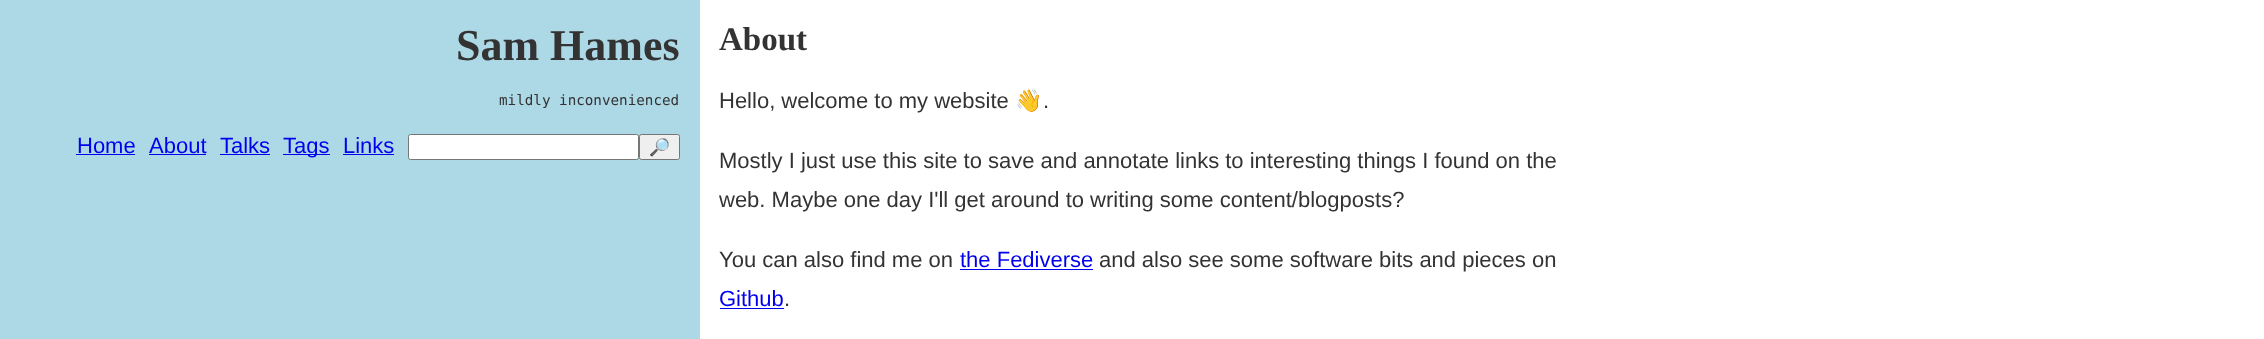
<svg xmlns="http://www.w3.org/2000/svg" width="2264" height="339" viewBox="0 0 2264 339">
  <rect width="100%" height="100%" fill="rgb(255,255,255)"/>
  <rect x="0" y="0" width="700" height="339" fill="rgb(173,216,230)"/>
  <text x="456" y="60" font-family="Liberation Serif" font-size="44" font-weight="bold" fill="rgb(51,51,51)">Sam Hames</text>
  <text x="499" y="105" font-family="DejaVu Sans Mono" font-size="14.25" fill="rgb(51,51,51)">mildly inconvenienced</text>
  <text x="77" y="153" font-family="Liberation Sans" font-size="22" fill="rgb(0,0,238)">Home</text>
  <rect x="76" y="154" width="59" height="1" fill="rgb(0,0,238)"/>
  <text x="149" y="153" font-family="Liberation Sans" font-size="22" fill="rgb(0,0,238)">About</text>
  <rect x="149" y="154" width="57" height="1" fill="rgb(0,0,238)"/>
  <text x="220" y="153" font-family="Liberation Sans" font-size="22" fill="rgb(0,0,238)">Talks</text>
  <rect x="220" y="154" width="50" height="1" fill="rgb(0,0,238)"/>
  <rect x="283" y="154" width="47" height="1" fill="rgb(0,0,238)"/>
  <g font-family="Liberation Sans" font-size="22" fill="rgb(0,0,238)">
    <text x="283" y="153">Tags</text>
    <text x="343" y="153">Links</text>
  </g>
  <rect x="343" y="154" width="51" height="1" fill="rgb(0,0,238)"/>
  <rect x="408.5" y="134.5" width="230" height="25" rx="2" fill="rgb(255,255,255)" stroke="rgb(118,118,118)"/>
  <rect x="639.5" y="134.5" width="40" height="25" rx="2" fill="rgb(239,239,239)" stroke="rgb(118,118,118)"/>
  <text x="649" y="153" font-family="Noto Color Emoji" font-size="17" fill="rgb(0,0,0)">🔎</text>
  <text x="719" y="50" font-family="Liberation Serif" font-size="33" font-weight="bold" fill="rgb(51,51,51)">About</text>
  <text x="719" y="108" font-family="Liberation Sans" font-size="22" fill="rgb(51,51,51)">Hello, welcome to my website</text>
  <text x="1015" y="108" font-family="Noto Color Emoji" font-size="22" fill="rgb(51,51,51)">👋</text>
  <g font-family="Liberation Sans" font-size="22" fill="rgb(51,51,51)">
    <text x="1043" y="108">.</text>
    <text>
      <tspan x="719" y="168">Mostly I just use this site to save and annotate links to interesting things I found on the</tspan>
      <tspan x="719" y="207">web. Maybe one day I'll get around to writing some content/blogposts?</tspan>
    </text>
    <text x="719" y="267">You can also find me on</text>
  </g>
  <text x="960" y="267" font-family="Liberation Sans" font-size="22" fill="rgb(0,0,238)">the Fediverse</text>
  <rect x="960" y="269" width="133" height="1" fill="rgb(0,0,238)"/>
  <text x="1099" y="267" font-family="Liberation Sans" font-size="22" fill="rgb(51,51,51)">and also see some software bits and pieces on</text>
  <text x="719" y="306" font-family="Liberation Sans" font-size="22" fill="rgb(0,0,238)">Github</text>
  <rect x="720" y="308" width="64" height="1" fill="rgb(0,0,238)"/>
  <text x="784" y="306" font-family="Liberation Sans" font-size="22" fill="rgb(51,51,51)">.</text>
</svg>
